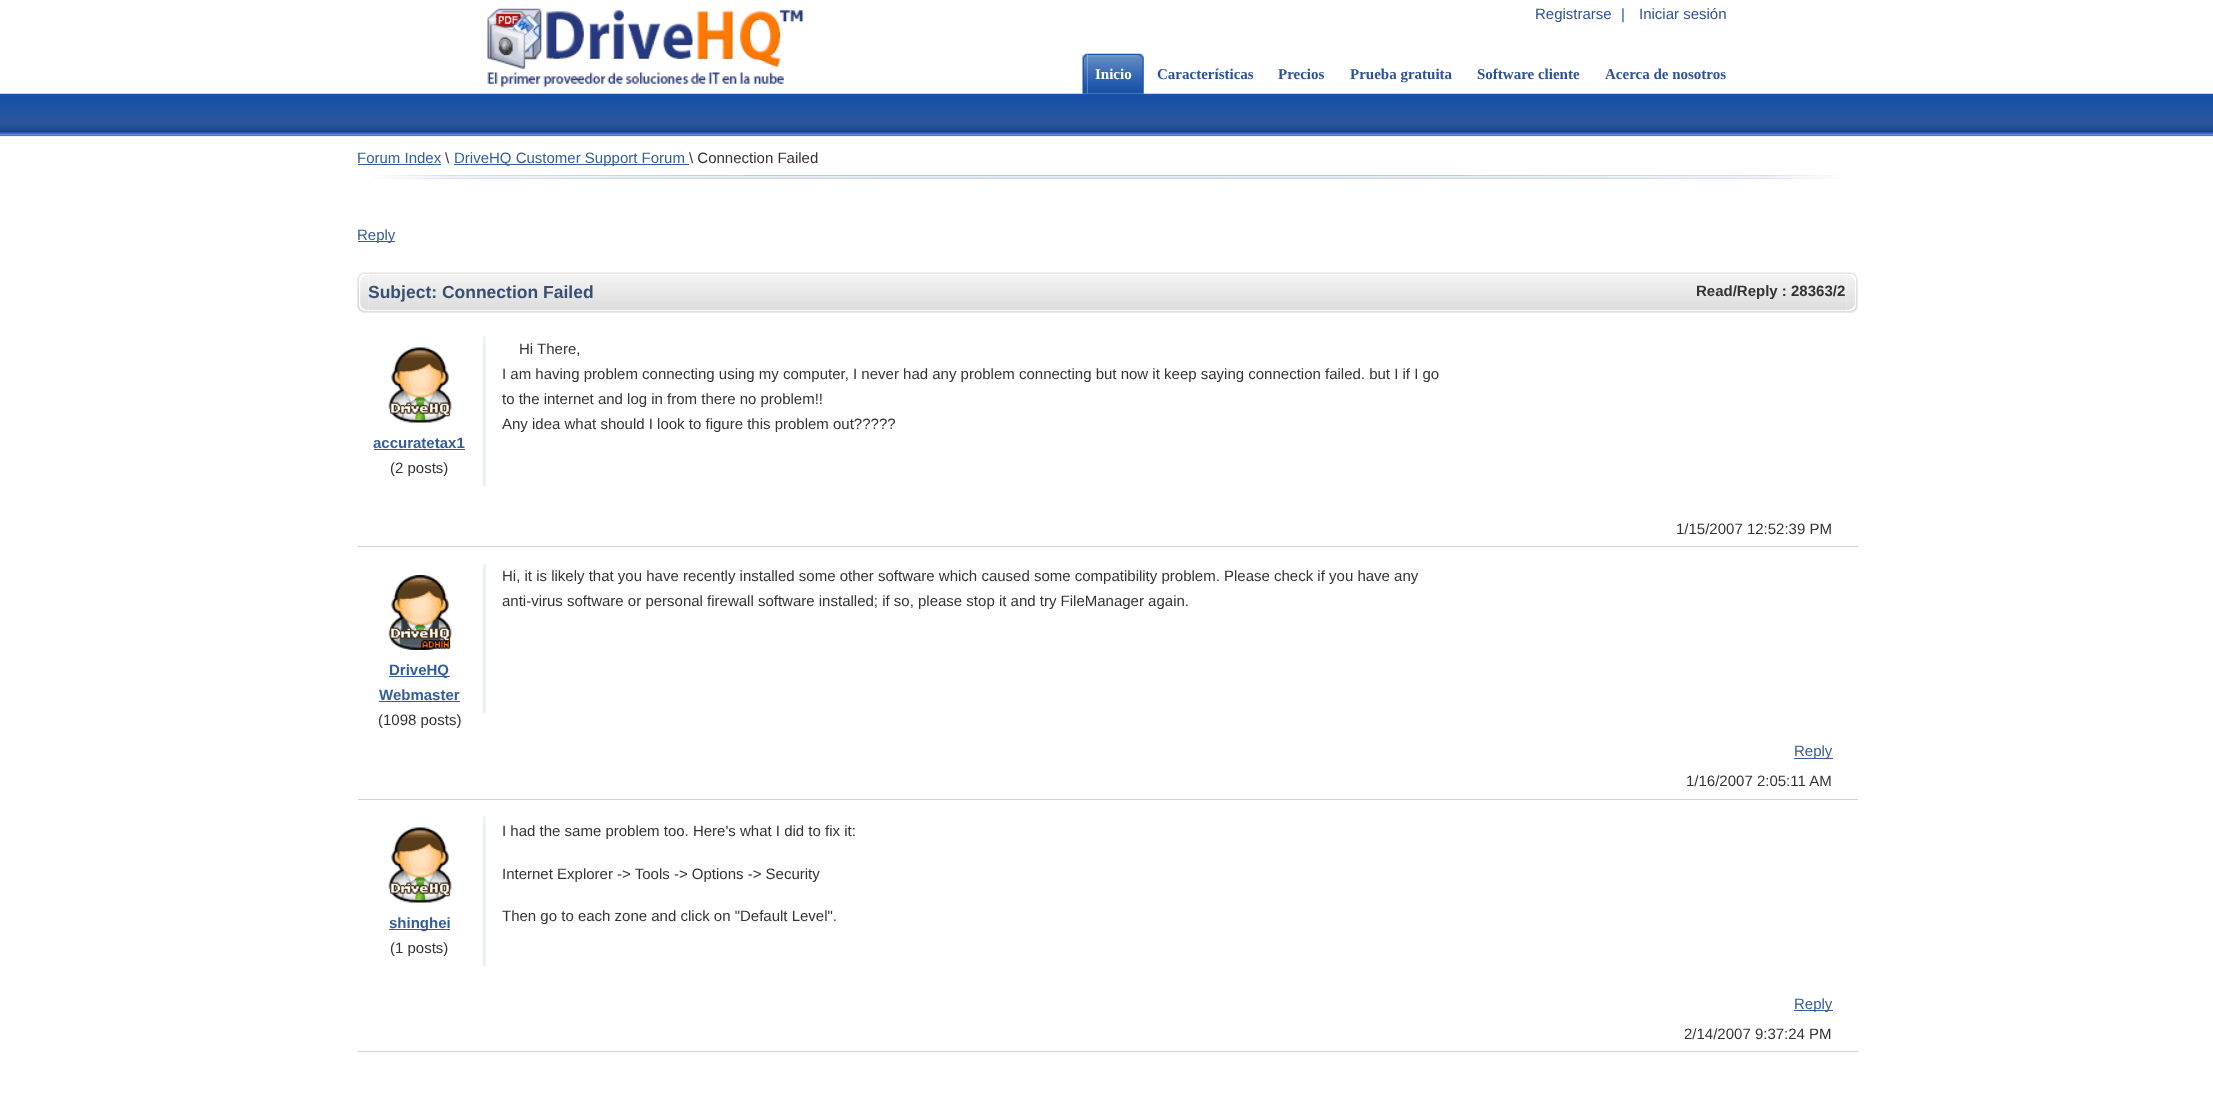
<svg xmlns="http://www.w3.org/2000/svg" width="2213" height="1095" viewBox="0 0 2213 1095">
  <rect width="100%" height="100%" fill="rgb(255,255,255)"/>
  <image x="0" y="93" width="2213" height="44" href="pic1.png"/>
  <image x="487" y="8" width="317" height="80" href="pic2.png"/>
  <g font-family="Liberation Sans" font-size="15" fill="rgb(46,82,153)">
    <text x="1535" y="19">Registrarse</text>
    <text x="1621" y="19">|</text>
    <text x="1639" y="19">Iniciar sesión</text>
  </g>
  <image x="1082" y="53" width="6" height="41" href="pic3.png"/>
  <image x="1087" y="53" width="57" height="41" href="pic4.png"/>
  <text x="1095" y="79" font-family="Liberation Serif" font-size="15" font-weight="bold" fill="rgb(255,255,255)">Inicio</text>
  <g font-family="Liberation Serif" font-size="15" font-weight="bold" fill="rgb(46,82,153)">
    <text x="1157" y="79">Características</text>
    <text x="1278" y="79">Precios</text>
    <text x="1350" y="79">Prueba gratuita</text>
    <text x="1477" y="79">Software cliente</text>
    <text x="1605" y="79">Acerca de nosotros</text>
  </g>
  <image x="374" y="175" width="1467" height="4" href="pic5.png"/>
  <text x="357" y="163" font-family="Liberation Sans" font-size="15" fill="rgb(52,93,154)">Forum Index</text>
  <rect x="358" y="164" width="83" height="1" fill="rgb(52,93,154)"/>
  <text x="445" y="163" font-family="Liberation Sans" font-size="15" fill="rgb(51,51,51)">\</text>
  <rect x="454" y="164" width="235" height="1" fill="rgb(52,93,154)"/>
  <text x="454" y="163" font-family="Liberation Sans" font-size="15" fill="rgb(52,93,154)">DriveHQ Customer Support Forum</text>
  <text x="689" y="163" font-family="Liberation Sans" font-size="15" fill="rgb(51,51,51)">\ Connection Failed</text>
  <rect x="358" y="241" width="37" height="1" fill="rgb(52,93,154)"/>
  <text x="357" y="240" font-family="Liberation Sans" font-size="15" fill="rgb(52,93,154)">Reply</text>
  <image x="357" y="272" width="12" height="41" href="pic6.png"/>
  <image x="369" y="272" width="1478" height="41" href="pic7.png"/>
  <text x="368" y="298" font-family="Liberation Sans" font-size="17.5" font-weight="bold" fill="rgb(56,80,113)">Subject: Connection Failed</text>
  <text x="1696" y="296" font-family="Liberation Sans" font-size="15" font-weight="bold" fill="rgb(51,51,51)">Read/Reply : 28363/2</text>
  <image x="1846" y="272" width="12" height="41" href="pic8.png"/>
  <image x="482" y="336" width="5" height="151" href="pic9.png"/>
  <g font-family="Liberation Sans" font-size="15" fill="rgb(51,51,51)">
    <text x="519" y="354">Hi There,</text>
    <text>
      <tspan x="502" y="379">I am having problem connecting using my computer, I never had any problem connecting but now it keep saying connection failed. but I if I go</tspan>
      <tspan x="502" y="404">to the internet and log in from there no problem!!</tspan>
      <tspan x="502" y="429">Any idea what should I look to figure this problem out?????</tspan>
    </text>
  </g>
  <image x="388" y="347" width="64" height="76" href="pic10.png"/>
  <text x="373" y="448" font-family="Liberation Sans" font-size="15" font-weight="bold" fill="rgb(52,93,154)">accuratetax1</text>
  <rect x="374" y="449" width="91" height="1" fill="rgb(52,93,154)"/>
  <g font-family="Liberation Sans" font-size="15" fill="rgb(51,51,51)">
    <text x="390" y="473">(2 posts)</text>
    <text x="1676" y="534">1/15/2007 12:52:39 PM</text>
  </g>
  <rect x="358" y="546" width="1500" height="1" fill="rgb(209,209,209)"/>
  <image x="482" y="563" width="5" height="151" href="pic11.png"/>
  <g font-family="Liberation Sans" font-size="15" fill="rgb(51,51,51)">
    <text>
      <tspan x="502" y="581">Hi, it is likely that you have recently installed some other software which caused some compatibility problem. Please check if you have any</tspan>
      <tspan x="502" y="606">anti-virus software or personal firewall software installed; if so, please stop it and try FileManager again.</tspan>
    </text>
  </g>
  <image x="388" y="575" width="64" height="75" href="pic12.png"/>
  <rect x="389" y="676" width="61" height="1" fill="rgb(52,93,154)"/>
  <g font-family="Liberation Sans" font-size="15" font-weight="bold" fill="rgb(52,93,154)">
    <text x="389" y="675">DriveHQ</text>
    <text x="379" y="700">Webmaster</text>
  </g>
  <rect x="379" y="701" width="81" height="1" fill="rgb(52,93,154)"/>
  <text x="378" y="725" font-family="Liberation Sans" font-size="15" fill="rgb(51,51,51)">(1098 posts)</text>
  <rect x="1794" y="758" width="39" height="1" fill="rgb(52,93,154)"/>
  <text x="1794" y="756" font-family="Liberation Sans" font-size="15" fill="rgb(52,93,154)">Reply</text>
  <text x="1686" y="786" font-family="Liberation Sans" font-size="15" fill="rgb(51,51,51)">1/16/2007 2:05:11 AM</text>
  <rect x="358" y="799" width="1500" height="1" fill="rgb(209,209,209)"/>
  <image x="482" y="816" width="5" height="151" href="pic9.png"/>
  <g font-family="Liberation Sans" font-size="15" fill="rgb(51,51,51)">
    <text x="502" y="836">I had the same problem too. Here's what I did to fix it:</text>
    <text x="502" y="879">Internet Explorer -&gt; Tools -&gt; Options -&gt; Security</text>
    <text x="502" y="921">Then go to each zone and click on "Default Level".</text>
  </g>
  <image x="388" y="827" width="64" height="76" href="pic10.png"/>
  <rect x="389" y="929" width="61" height="1" fill="rgb(52,93,154)"/>
  <text x="389" y="928" font-family="Liberation Sans" font-size="15" font-weight="bold" fill="rgb(52,93,154)">shinghei</text>
  <text x="390" y="953" font-family="Liberation Sans" font-size="15" fill="rgb(51,51,51)">(1 posts)</text>
  <rect x="1794" y="1010" width="39" height="1" fill="rgb(52,93,154)"/>
  <text x="1794" y="1009" font-family="Liberation Sans" font-size="15" fill="rgb(52,93,154)">Reply</text>
  <text x="1684" y="1039" font-family="Liberation Sans" font-size="15" fill="rgb(51,51,51)">2/14/2007 9:37:24 PM</text>
  <rect x="358" y="1051" width="1500" height="1" fill="rgb(209,209,209)"/>
</svg>
